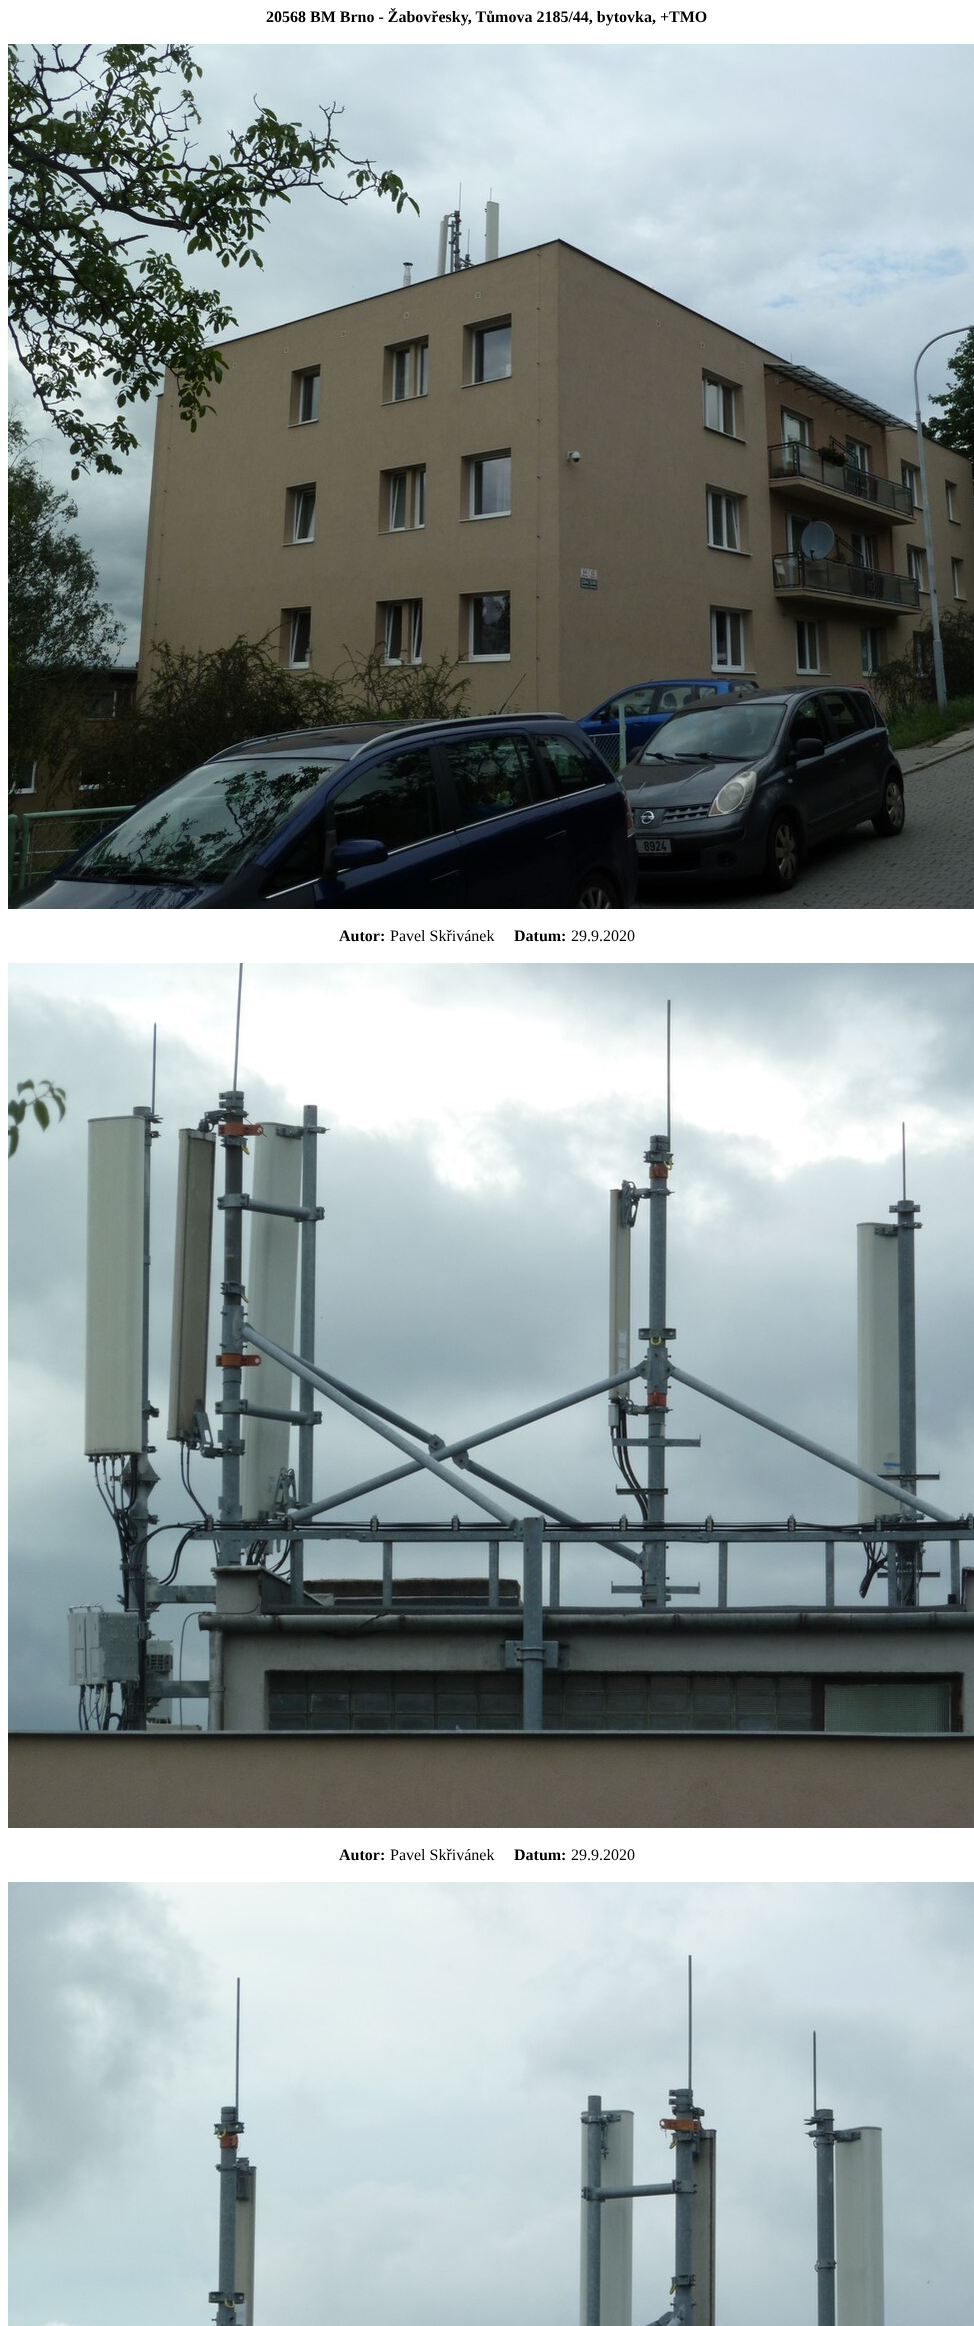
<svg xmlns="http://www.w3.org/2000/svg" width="974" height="2326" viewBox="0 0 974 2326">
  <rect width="100%" height="100%" fill="rgb(255,255,255)"/>
  <text x="266" y="22" font-family="Liberation Serif" font-size="16" font-weight="bold" fill="rgb(0,0,0)">20568 BM Brno - Žabovřesky, Tůmova 2185/44, bytovka, +TMO</text>
  <image x="8" y="44" width="966" height="865" href="pic1.png"/>
  <text x="339" y="941" font-family="Liberation Serif" font-size="16" font-weight="bold" fill="rgb(0,0,0)">Autor:</text>
  <text x="390" y="941" font-family="Liberation Serif" font-size="16" fill="rgb(0,0,0)">Pavel Skřivánek</text>
  <text x="514" y="941" font-family="Liberation Serif" font-size="16" font-weight="bold" fill="rgb(0,0,0)">Datum:</text>
  <text x="571" y="941" font-family="Liberation Serif" font-size="16" fill="rgb(0,0,0)">29.9.2020</text>
  <image x="8" y="963" width="966" height="865" href="pic2.png"/>
  <text x="339" y="1860" font-family="Liberation Serif" font-size="16" font-weight="bold" fill="rgb(0,0,0)">Autor:</text>
  <text x="390" y="1860" font-family="Liberation Serif" font-size="16" fill="rgb(0,0,0)">Pavel Skřivánek</text>
  <text x="514" y="1860" font-family="Liberation Serif" font-size="16" font-weight="bold" fill="rgb(0,0,0)">Datum:</text>
  <text x="571" y="1860" font-family="Liberation Serif" font-size="16" fill="rgb(0,0,0)">29.9.2020</text>
  <image x="8" y="1882" width="966" height="444" href="pic3.png"/>
</svg>
